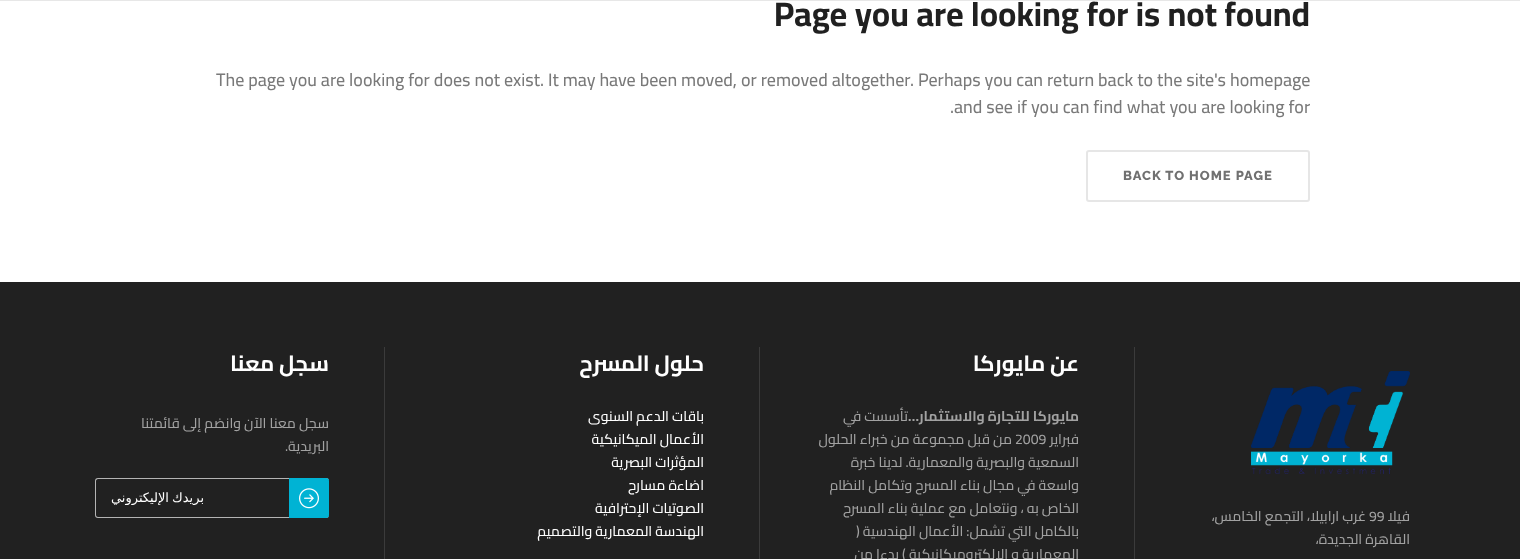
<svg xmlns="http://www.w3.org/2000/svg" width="1520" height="559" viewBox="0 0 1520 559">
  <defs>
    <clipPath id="clip1"><rect x="111" y="490" width="168" height="15"/></clipPath>
  </defs>
  <rect width="100%" height="100%" fill="rgb(255,255,255)"/>
  <rect x="0" y="0" width="1520" height="1" fill="rgb(231,231,231)"/>
  <text x="774" y="26" font-family="Cairo" font-size="34" font-weight="bold" fill="rgb(32,32,32)">Page you are looking for is not found</text>
  <g font-family="Cairo" font-size="18" font-weight="500" fill="rgb(121,121,121)">
    <text x="216" y="86">The page you are looking for does not exist. It may have been moved, or removed altogether. Perhaps you can return back to the site's homepage</text>
    <text x="950" y="113">.and see if you can find what you are looking for</text>
  </g>
  <rect x="1087" y="151" width="222" height="50" rx="2" fill="none" stroke="rgb(230,230,230)" stroke-width="2"/>
  <text x="1123" y="180" font-family="Raleway" font-size="13" font-weight="800" letter-spacing="1" fill="rgb(112,112,112)">BACK TO HOME PAGE</text>
  <rect x="0" y="282" width="1520" height="277" fill="rgb(33,33,33)"/>
  <image x="1251" y="371" width="159" height="103" href="pic1.png"/>
  <text x="1410" y="521" font-family="Cairo" font-size="14" font-weight="500" direction="rtl" fill="rgb(162,162,162)">فيلا</text>
  <text x="1369" y="521" font-family="Cairo" font-size="14" font-weight="500" fill="rgb(162,162,162)">99</text>
  <g font-family="Cairo" font-size="14" font-weight="500" direction="rtl" fill="rgb(162,162,162)">
    <text x="1366" y="521">غرب ارابيلا، التجمع الخامس،</text>
    <text x="1410" y="544">القاهرة الجديدة،</text>
  </g>
  <rect x="1134" y="347" width="1" height="212" fill="rgb(59,59,59)"/>
  <text x="1079" y="371" font-family="Cairo" font-size="22" font-weight="bold" direction="rtl" fill="rgb(255,255,255)">عن مايوركا</text>
  <text x="1079" y="421" font-family="Cairo" font-size="14" font-weight="bold" direction="rtl" fill="rgb(162,162,162)">مايوركا للتجارة والاستثمار…</text>
  <g font-family="Cairo" font-size="14" font-weight="500" direction="rtl" fill="rgb(162,162,162)">
    <text x="908" y="421">تأسست في</text>
    <text x="1079" y="444">فبراير</text>
  </g>
  <text x="1015" y="444" font-family="Cairo" font-size="14" font-weight="500" fill="rgb(162,162,162)">2009</text>
  <g font-family="Cairo" font-size="14" font-weight="500" direction="rtl" fill="rgb(162,162,162)">
    <text x="1012" y="444">من قبل مجموعة من خبراء الحلول</text>
    <text>
      <tspan x="1079" y="467">السمعية والبصرية والمعمارية. لدينا خبرة</tspan>
      <tspan x="1079" y="490">واسعة في مجال بناء المسرح وتكامل النظام</tspan>
      <tspan x="1079" y="513">الخاص به ، ونتعامل مع عملية بناء المسرح</tspan>
      <tspan x="1079" y="536">بالكامل التي تشمل: الأعمال الهندسية (</tspan>
      <tspan x="1079" y="559">المعمارية و الالكتروميكانيكية ) بدءا من</tspan>
    </text>
  </g>
  <rect x="759" y="347" width="1" height="212" fill="rgb(59,59,59)"/>
  <text x="704" y="371" font-family="Cairo" font-size="22" font-weight="bold" direction="rtl" fill="rgb(255,255,255)">حلول المسرح</text>
  <g font-family="Cairo" font-size="14" font-weight="500" direction="rtl" fill="rgb(255,255,255)">
    <text>
      <tspan x="704" y="421">باقات الدعم السنوى</tspan>
      <tspan x="704" y="444">الأعمال الميكانيكية</tspan>
      <tspan x="704" y="467">المؤثرات البصرية</tspan>
      <tspan x="704" y="490">اضاءة مسارح</tspan>
      <tspan x="704" y="513">الصوتيات الإحترافية</tspan>
      <tspan x="704" y="536">الهندسة المعمارية والتصميم</tspan>
    </text>
  </g>
  <rect x="384" y="347" width="1" height="212" fill="rgb(59,59,59)"/>
  <text x="329" y="371" font-family="Cairo" font-size="22" font-weight="bold" direction="rtl" fill="rgb(255,255,255)">سجل معنا</text>
  <g font-family="Cairo" font-size="14" font-weight="500" direction="rtl" fill="rgb(162,162,162)">
    <text>
      <tspan x="329" y="428">سجل معنا الآن وانضم إلى قائمتنا</tspan>
      <tspan x="329" y="451">البريدية.</tspan>
    </text>
  </g>
  <path d="M98 478H326C328 478 329 479 329 481V515C329 517 328 518 326 518H98C96 518 95 517 95 515V481C95 479 96 478 98 478ZM98 479H326C328 479 329 480 329 481V515C329 516 328 517 326 517H98C97 517 96 516 96 515V481C96 480 97 479 98 479Z" fill="rgb(180,180,180)" fill-rule="evenodd"/>
  <path d="M290 479H326C327 479 328 480 328 481V515C328 516 327 517 326 517H290Z" fill="rgb(0,179,212)" stroke="rgb(0,179,212)" stroke-width="2"/>
  <image x="299" y="488" width="20" height="21" href="pic2.png"/>
  <g clip-path="url(#clip1)">
    <text x="204" y="502" word-spacing="-1" font-family="DejaVu Sans" font-size="13" direction="rtl" fill="rgb(255,255,255)">بريدك الإليكتروني</text>
  </g>
</svg>
